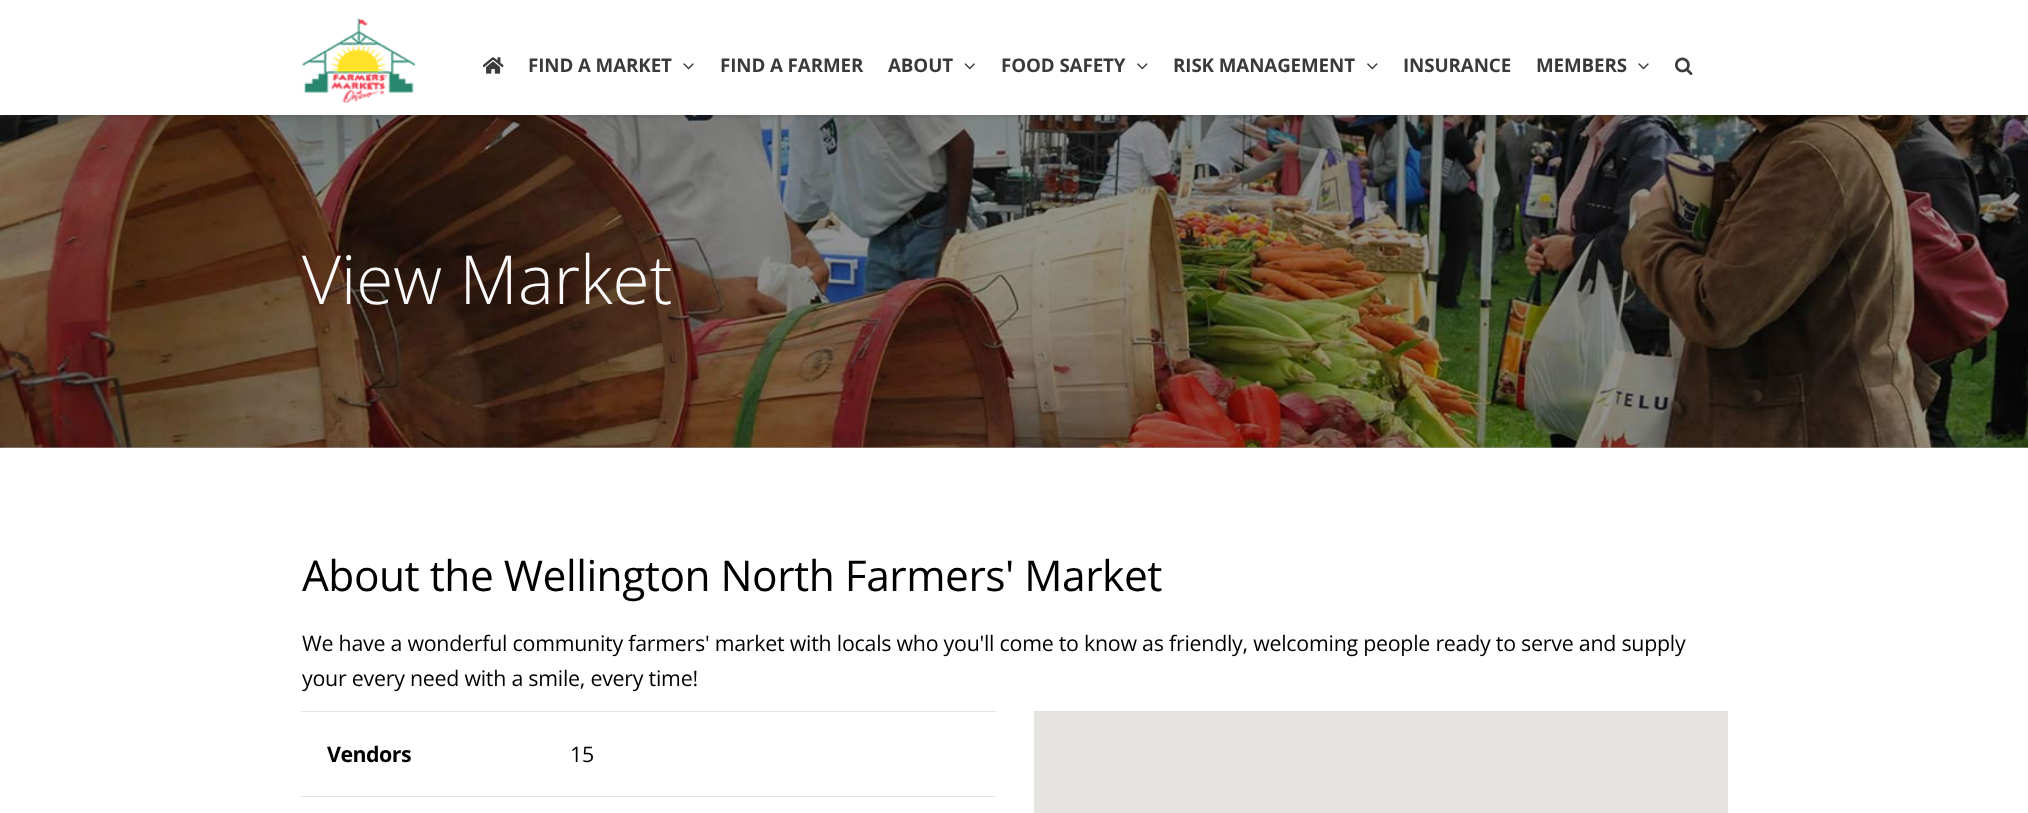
<svg xmlns="http://www.w3.org/2000/svg" width="2028" height="813" viewBox="0 0 2028 813">
  <rect width="100%" height="100%" fill="rgb(255,255,255)"/>
  <rect x="0" y="447" width="2028" height="1" fill="rgb(161,161,161)"/>
  <image x="0" y="115" width="2028" height="333" href="pic7.png"/>
  <rect x="3" y="10" width="2023" height="110" fill="rgba(0,0,0,0.14)" filter="blur(31px)"/>
  <rect x="0" y="1" width="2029" height="115" fill="rgba(0,0,0,0.12)" filter="blur(2px)"/>
  <rect x="0" y="0" width="2028" height="115" fill="rgb(255,255,255)"/>
  <image x="302" y="18" width="113" height="85" href="pic1.png"/>
  <image x="483" y="57" width="21" height="17" href="pic2.png"/>
  <text x="528" y="72" font-family="Open Sans" font-size="18.75" font-weight="bold" letter-spacing="-0.1" fill="rgb(58,58,58)">FIND A MARKET</text>
  <image x="683" y="63" width="11" height="7" href="pic3.png"/>
  <g font-family="Open Sans" font-size="18.75" font-weight="bold" letter-spacing="-0.1" fill="rgb(58,58,58)">
    <text x="720" y="72">FIND A FARMER</text>
    <text x="888" y="72">ABOUT</text>
  </g>
  <image x="964" y="63" width="11" height="7" href="pic4.png"/>
  <text x="1001" y="72" font-family="Open Sans" font-size="18.75" font-weight="bold" letter-spacing="-0.1" fill="rgb(58,58,58)">FOOD SAFETY</text>
  <image x="1137" y="63" width="11" height="7" href="pic5.png"/>
  <text x="1173" y="72" font-family="Open Sans" font-size="18.75" font-weight="bold" letter-spacing="-0.1" fill="rgb(58,58,58)">RISK MANAGEMENT</text>
  <image x="1367" y="63" width="11" height="7" href="pic5.png"/>
  <g font-family="Open Sans" font-size="18.75" font-weight="bold" letter-spacing="-0.1" fill="rgb(58,58,58)">
    <text x="1403" y="72">INSURANCE</text>
    <text x="1536" y="72">MEMBERS</text>
  </g>
  <image x="1638" y="63" width="11" height="7" href="pic3.png"/>
  <image x="1675" y="57" width="18" height="18" href="pic6.png"/>
  <text x="302" y="304" font-family="Open Sans" font-size="67.5" font-weight="300" fill="rgb(249,249,249)">View Market</text>
  <text x="302" y="591" font-family="Open Sans" font-size="42.5" letter-spacing="-0.5" fill="rgb(0,0,0)">About the Wellington North Farmers' Market</text>
  <g font-family="Open Sans" font-size="21.38" letter-spacing="-0.25" fill="rgb(0,0,0)">
    <text>
      <tspan x="302" y="651">We have a wonderful community farmers' market with locals who you'll come to know as friendly, welcoming people ready to serve and supply</tspan>
      <tspan x="302" y="686">your every need with a smile, every time!</tspan>
    </text>
  </g>
  <text x="327" y="762" font-family="Open Sans" font-size="21.38" font-weight="bold" letter-spacing="-0.5" fill="rgb(0,0,0)">Vendors</text>
  <rect x="301" y="711" width="695" height="1" fill="rgb(229,228,227)"/>
  <text x="570" y="762" font-family="Open Sans" font-size="21.38" letter-spacing="-0.25" fill="rgb(0,0,0)">15</text>
  <rect x="301" y="796" width="695" height="1" fill="rgb(229,228,227)"/>
  <rect x="1034" y="711" width="694" height="102" fill="rgb(229,227,223)"/>
</svg>
